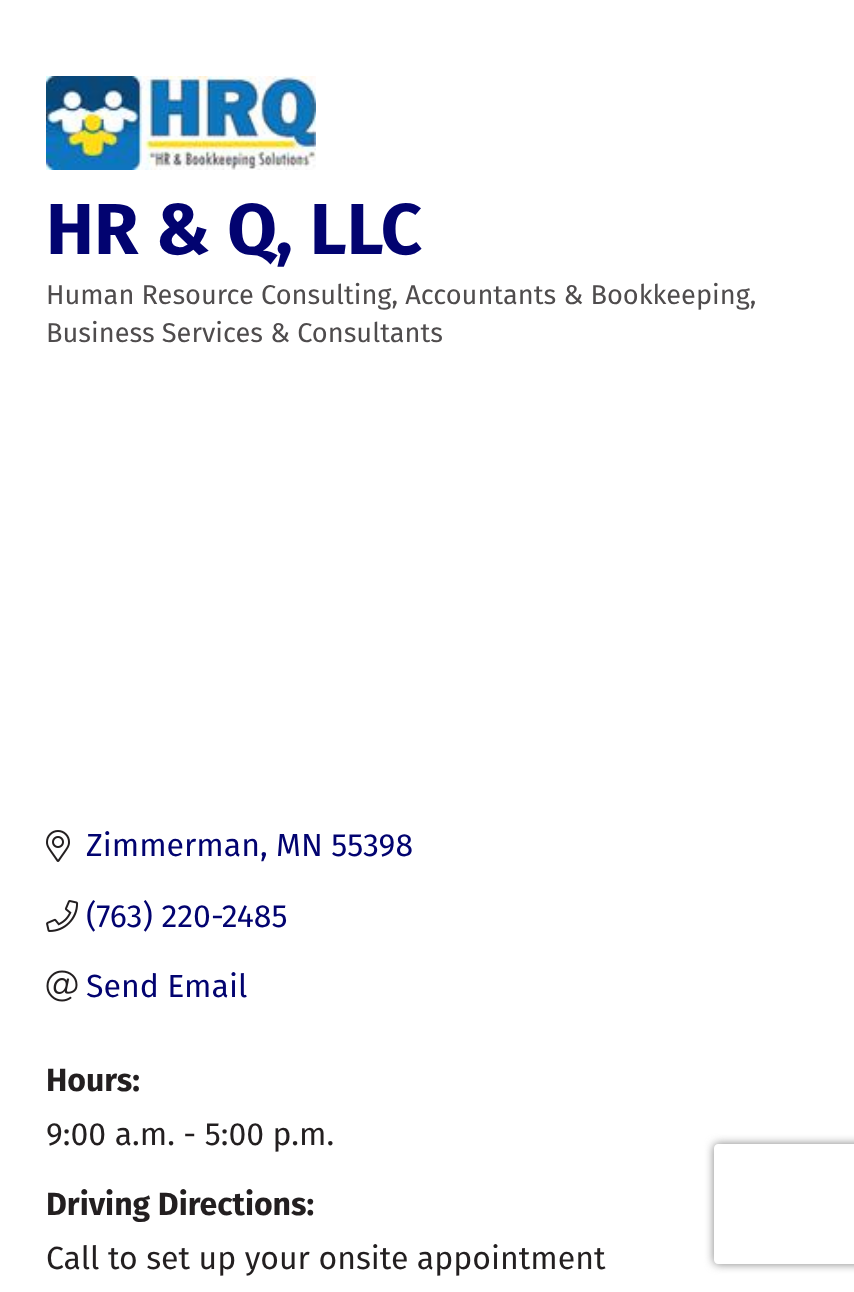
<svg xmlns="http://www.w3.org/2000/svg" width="854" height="1292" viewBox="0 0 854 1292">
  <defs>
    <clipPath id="clip1"><path d="M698 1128H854V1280H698ZM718 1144H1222C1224 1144 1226 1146 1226 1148V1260C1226 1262 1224 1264 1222 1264H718C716 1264 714 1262 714 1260V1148C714 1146 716 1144 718 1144Z" clip-rule="evenodd"/></clipPath>
  </defs>
  <rect width="100%" height="100%" fill="rgb(255,255,255)"/>
  <image x="46" y="76" width="270" height="94" href="pic1.png"/>
  <text x="46" y="254" font-family="Fira Sans" font-size="72" font-weight="bold" fill="rgb(2,3,112)">HR &amp; Q, LLC</text>
  <g font-family="Fira Sans" font-size="27.2" fill="rgb(79,76,77)">
    <text>
      <tspan x="46" y="304">Human Resource Consulting, Accountants &amp; Bookkeeping,</tspan>
      <tspan x="46" y="342">Business Services &amp; Consultants</tspan>
    </text>
  </g>
  <image x="46" y="830" width="24" height="32" href="pic2.png"/>
  <text x="86" y="856" font-family="Fira Sans" font-size="32" fill="rgb(2,3,112)">Zimmerman, MN 55398</text>
  <image x="46" y="900" width="33" height="32" href="pic3.png"/>
  <text x="86" y="927" font-family="Fira Sans" font-size="32" fill="rgb(2,3,112)">(763) 220-2485</text>
  <image x="46" y="970" width="32" height="32" href="pic4.png"/>
  <text x="86" y="997" font-family="Fira Sans" font-size="32" fill="rgb(2,3,112)">Send Email</text>
  <text x="46" y="1091" font-family="Fira Sans" font-size="32" font-weight="bold" fill="rgb(35,31,32)">Hours:</text>
  <text x="46" y="1145" font-family="Fira Sans" font-size="32" fill="rgb(35,31,32)">9:00 a.m. - 5:00 p.m.</text>
  <text x="46" y="1215" font-family="Fira Sans" font-size="32" font-weight="bold" fill="rgb(35,31,32)">Driving Directions:</text>
  <text x="46" y="1269" font-family="Fira Sans" font-size="32" fill="rgb(35,31,32)">Call to set up your onsite appointment</text>
  <g clip-path="url(#clip1)">
    <rect x="714" y="1144" width="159" height="120" rx="4" fill="rgb(128,128,128)" filter="blur(5px)"/>
  </g>
</svg>
